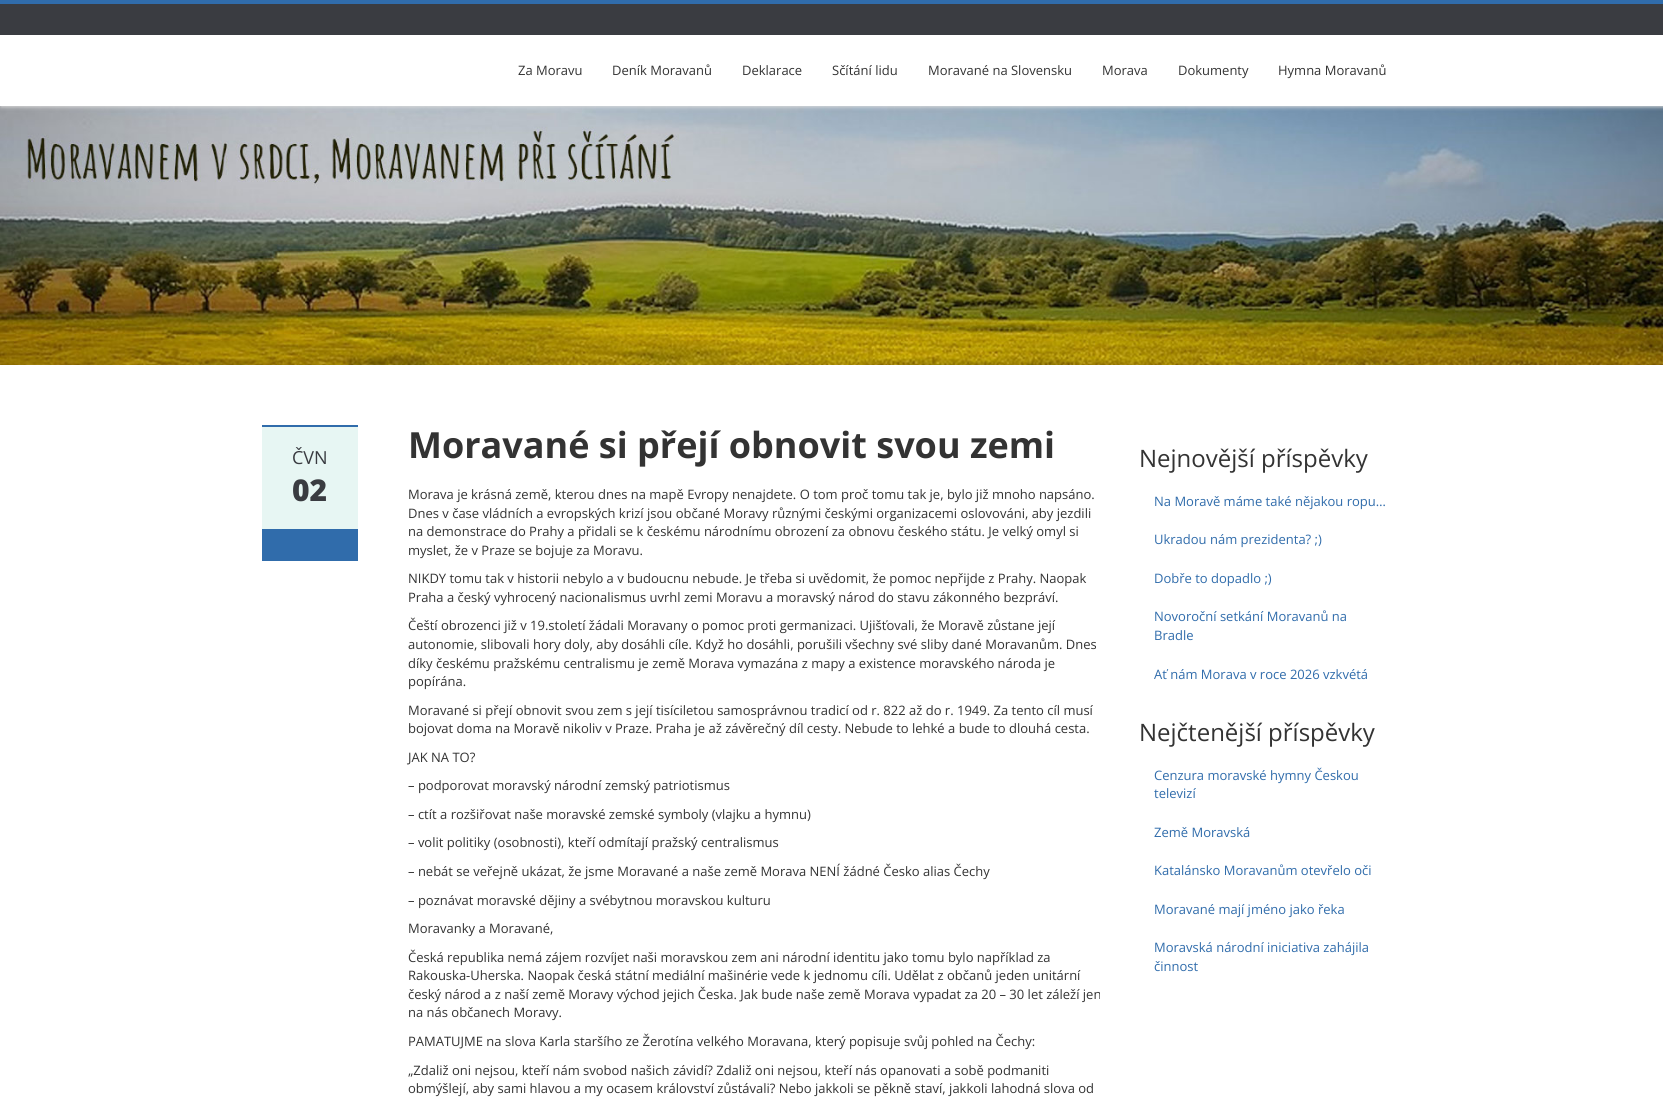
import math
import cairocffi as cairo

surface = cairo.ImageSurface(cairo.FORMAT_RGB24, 1663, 1104)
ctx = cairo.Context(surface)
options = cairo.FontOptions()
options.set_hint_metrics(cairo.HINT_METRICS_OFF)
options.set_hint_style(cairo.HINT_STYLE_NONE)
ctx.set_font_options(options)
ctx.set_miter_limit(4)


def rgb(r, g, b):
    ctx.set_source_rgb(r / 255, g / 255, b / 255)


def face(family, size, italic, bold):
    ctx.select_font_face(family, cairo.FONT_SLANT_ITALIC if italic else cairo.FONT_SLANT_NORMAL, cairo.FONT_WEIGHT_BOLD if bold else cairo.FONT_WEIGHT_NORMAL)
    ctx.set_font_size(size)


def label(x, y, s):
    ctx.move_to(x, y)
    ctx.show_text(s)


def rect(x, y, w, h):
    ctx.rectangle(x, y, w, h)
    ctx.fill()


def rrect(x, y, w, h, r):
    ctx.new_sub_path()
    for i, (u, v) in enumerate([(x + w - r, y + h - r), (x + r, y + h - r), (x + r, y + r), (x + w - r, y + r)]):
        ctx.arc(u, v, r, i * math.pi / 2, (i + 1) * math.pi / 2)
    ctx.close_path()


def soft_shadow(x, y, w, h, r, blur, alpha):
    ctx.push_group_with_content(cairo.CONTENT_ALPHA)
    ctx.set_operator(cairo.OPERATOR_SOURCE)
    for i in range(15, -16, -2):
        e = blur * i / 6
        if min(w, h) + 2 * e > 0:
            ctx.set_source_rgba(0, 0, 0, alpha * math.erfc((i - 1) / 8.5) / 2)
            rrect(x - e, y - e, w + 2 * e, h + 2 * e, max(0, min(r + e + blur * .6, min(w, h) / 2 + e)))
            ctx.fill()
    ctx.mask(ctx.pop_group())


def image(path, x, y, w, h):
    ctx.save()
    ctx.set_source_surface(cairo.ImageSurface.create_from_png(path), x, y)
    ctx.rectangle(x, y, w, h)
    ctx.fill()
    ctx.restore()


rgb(255, 255, 255)
ctx.paint()
image('image0.png', 0, 106, 1663, 259)
ctx.save()
ctx.rectangle(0, 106, 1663, 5)
ctx.clip()
rgb(221, 221, 221)
soft_shadow(1, 1, 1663, 106, 0, 2, 1)
ctx.restore()
rgb(58, 60, 65)
rect(0, 4, 1663, 31)
rgb(48, 108, 171)
rect(0, 0, 1663, 4)
face('Open Sans', 13, 0, 0)
rgb(51, 51, 51)
label(518, 75, 'Za Moravu')
label(612, 75, 'Deník Moravanů')
label(742, 75, 'Deklarace')
label(832, 75, 'Sčítání lidu')
label(928, 75, 'Moravané na Slovensku')
label(1102, 75, 'Morava')
label(1178, 75, 'Dokumenty')
label(1278, 75, 'Hymna Moravanů')
rgb(231, 246, 243)
rect(262, 427, 96, 102)
rgb(48, 108, 171)
rect(262, 425, 96, 2)
face('Open Sans', 18, 0, 0)
rgb(58, 60, 65)
label(292, 464, 'ČVN')
face('Open Sans ExtraBold', 30, 0, 0)
label(292, 501, '02')
rgb(48, 108, 171)
rect(262, 529, 96, 32)
face('Open Sans', 36, 0, 1)
rgb(51, 51, 51)
label(408, 458, 'Moravané si přejí obnovit svou zemi')
face('Open Sans', 13, 0, 0)
label(408, 499, 'Morava je krásná země, kterou dnes na mapě Evropy nenajdete. O tom proč tomu tak je, bylo již mnoho napsáno.')
label(408, 518, 'Dnes v čase vládních a evropských krizí jsou občané Moravy různými českými organizacemi oslovováni, aby jezdili')
label(408, 536, 'na demonstrace do Prahy a přidali se k českému národnímu obrození za obnovu českého státu. Je velký omyl si')
label(408, 555, 'myslet, že v Praze se bojuje za Moravu.')
label(408, 583, 'NIKDY tomu tak v historii nebylo a v budoucnu nebude. Je třeba si uvědomit, že pomoc nepřijde z Prahy. Naopak')
label(408, 602, 'Praha a český vyhrocený nacionalismus uvrhl zemi Moravu a moravský národ do stavu zákonného bezpráví.')
label(408, 630, 'Čeští obrozenci již v 19.století žádali Moravany o pomoc proti germanizaci. Ujišťovali, že Moravě zůstane její')
label(408, 649, 'autonomie, slibovali hory doly, aby dosáhli cíle. Když ho dosáhli, porušili všechny své sliby dané Moravanům. Dnes')
label(408, 668, 'díky českému pražskému centralismu je země Morava vymazána z mapy a existence moravského národa je')
label(408, 686, 'popírána.')
label(408, 715, 'Moravané si přejí obnovit svou zem s její tisíciletou samosprávnou tradicí od r. 822 až do r. 1949. Za tento cíl musí')
label(408, 733, 'bojovat doma na Moravě nikoliv v Praze. Praha je až závěrečný díl cesty. Nebude to lehké a bude to dlouhá cesta.')
label(408, 762, 'JAK NA TO?')
label(408, 790, '– podporovat moravský národní zemský patriotismus')
label(408, 819, '– ctít a rozšiřovat naše moravské zemské symboly (vlajku a hymnu)')
label(408, 847, '– volit politiky (osobnosti), kteří odmítají pražský centralismus')
label(408, 876, '– nebát se veřejně ukázat, že jsme Moravané a naše země Morava NENÍ žádné Česko alias Čechy')
label(408, 905, '– poznávat moravské dějiny a svébytnou moravskou kulturu')
label(408, 933, 'Moravanky a Moravané,')
label(408, 962, 'Česká republika nemá zájem rozvíjet naši moravskou zem ani národní identitu jako tomu bylo například za')
label(408, 980, 'Rakouska-Uherska. Naopak česká státní mediální mašinérie vede k jednomu cíli. Udělat z občanů jeden unitární')
label(408, 999, 'český národ a z naší země Moravy východ jejich Česka. Jak bude naše země Morava vypadat za 20 – 30 let záleží jen')
label(408, 1017, 'na nás občanech Moravy.')
label(408, 1046, 'PAMATUJME na slova Karla staršího ze Žerotína velkého Moravana, který popisuje svůj pohled na Čechy:')
label(408, 1075, '„Zdaliž oni nejsou, kteří nám svobod našich závidí? Zdaliž oni nejsou, kteří nás opanovati a sobě podmaniti')
label(408, 1093, 'obmýšlejí, aby sami hlavou a my ocasem království zůstávali? Nebo jakkoli se pěkně staví, jakkoli lahodná slova od')
face('Open Sans', 24, 0, 0)
label(1139, 467, 'Nejnovější příspěvky')
face('Open Sans', 13, 0, 0)
rgb(48, 108, 171)
label(1154, 506, 'Na Moravě máme také nějakou ropu…')
label(1154, 544, 'Ukradou nám prezidenta? ;)')
label(1154, 583, 'Dobře to dopadlo ;)')
label(1154, 621, 'Novoroční setkání Moravanů na')
label(1154, 640, 'Bradle')
label(1154, 679, 'Ať nám Morava v roce 2026 vzkvétá')
face('Open Sans', 24, 0, 0)
rgb(51, 51, 51)
label(1139, 741, 'Nejčtenější příspěvky')
face('Open Sans', 13, 0, 0)
rgb(48, 108, 171)
label(1154, 780, 'Cenzura moravské hymny Českou')
label(1154, 798, 'televizí')
label(1154, 837, 'Země Moravská')
label(1154, 875, 'Katalánsko Moravanům otevřelo oči')
label(1154, 914, 'Moravané mají jméno jako řeka')
label(1154, 952, 'Moravská národní iniciativa zahájila')
label(1154, 971, 'činnost')
surface.write_to_png('render.png')
